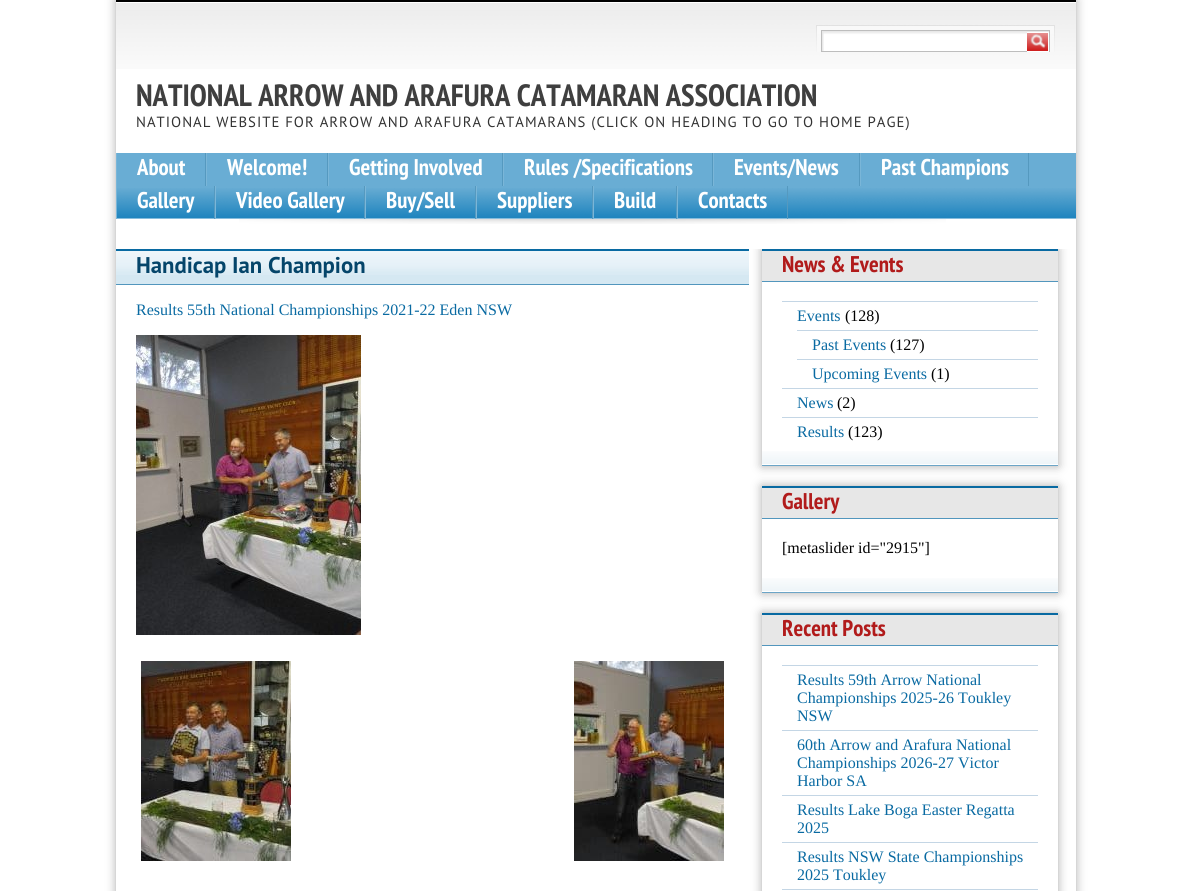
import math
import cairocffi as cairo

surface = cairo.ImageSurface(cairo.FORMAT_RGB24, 1192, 891)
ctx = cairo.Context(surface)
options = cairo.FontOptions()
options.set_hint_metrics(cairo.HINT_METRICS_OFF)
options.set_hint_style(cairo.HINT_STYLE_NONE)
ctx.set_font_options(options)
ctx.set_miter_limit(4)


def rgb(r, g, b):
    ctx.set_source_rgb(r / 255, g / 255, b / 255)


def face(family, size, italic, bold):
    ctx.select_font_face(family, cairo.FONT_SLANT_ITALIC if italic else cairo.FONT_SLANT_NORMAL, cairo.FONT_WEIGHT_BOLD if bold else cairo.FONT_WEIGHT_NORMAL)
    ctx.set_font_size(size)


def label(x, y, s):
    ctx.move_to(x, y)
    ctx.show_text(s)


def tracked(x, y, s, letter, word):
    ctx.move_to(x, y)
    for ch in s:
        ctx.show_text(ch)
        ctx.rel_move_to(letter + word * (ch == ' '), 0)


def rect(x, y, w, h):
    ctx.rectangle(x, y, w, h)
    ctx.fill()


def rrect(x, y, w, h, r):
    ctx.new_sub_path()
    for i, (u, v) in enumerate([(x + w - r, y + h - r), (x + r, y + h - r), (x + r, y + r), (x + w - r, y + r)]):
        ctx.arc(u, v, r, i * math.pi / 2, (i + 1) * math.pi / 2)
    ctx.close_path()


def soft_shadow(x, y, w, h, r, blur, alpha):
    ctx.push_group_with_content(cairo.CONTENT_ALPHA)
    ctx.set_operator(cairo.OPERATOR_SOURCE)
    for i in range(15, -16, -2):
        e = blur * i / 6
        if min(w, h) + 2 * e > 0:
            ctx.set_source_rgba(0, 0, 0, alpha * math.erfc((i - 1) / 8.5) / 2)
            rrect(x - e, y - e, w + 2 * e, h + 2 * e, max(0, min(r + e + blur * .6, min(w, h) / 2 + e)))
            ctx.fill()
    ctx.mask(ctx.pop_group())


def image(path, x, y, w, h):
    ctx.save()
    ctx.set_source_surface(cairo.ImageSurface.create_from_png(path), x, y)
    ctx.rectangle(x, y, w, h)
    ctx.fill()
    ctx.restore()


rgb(255, 255, 255)
ctx.paint()
ctx.save()
ctx.set_fill_rule(cairo.FILL_RULE_EVEN_ODD)
ctx.new_path()
ctx.move_to(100, 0)
ctx.line_to(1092, 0)
ctx.line_to(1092, 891)
ctx.line_to(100, 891)
ctx.close_path()
ctx.move_to(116, 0)
ctx.line_to(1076, 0)
ctx.line_to(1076, 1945)
ctx.line_to(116, 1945)
ctx.close_path()
ctx.clip()
rgb(170, 170, 170)
soft_shadow(116, 0, 960, 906, 0, 5, 1)
ctx.restore()
image('image0.png', 116, 0, 960, 69)
image('image1.png', 816, 25, 239, 27)
image('image2.png', 1027, 33, 21, 18)
rgb(255, 255, 255)
rect(1027, 32, 22, 1)
rect(1048, 32, 1, 20)
rect(1027, 51, 22, 1)
face('PT Sans Narrow', 30.75, 0, 1)
rgb(63, 63, 63)
label(136, 106, 'NATIONAL ARROW AND ARAFURA CATAMARAN ASSOCIATION')
face('PT Sans', 14.77, 0, 0)
rgb(51, 51, 51)
tracked(136, 127, 'NATIONAL WEBSITE FOR ARROW AND ARAFURA CATAMARANS (CLICK ON HEADING TO GO TO HOME PAGE)', 1, 0)
image('image3.png', 239, 219, 707, 5)
rgb(105, 173, 212)
rect(117, 153, 959, 35)
image('image4.png', 117, 188, 959, 31)
rgb(85, 153, 191)
rect(205, 153, 1, 33)
rgb(122, 182, 216)
rect(116, 153, 1, 66)
face('PT Sans Narrow', 22.75, 0, 1)
rgb(255, 255, 255)
label(137, 175, 'About')
rgb(85, 153, 191)
rect(327, 153, 1, 33)
rgb(122, 182, 216)
rect(206, 153, 1, 33)
rgb(255, 255, 255)
label(227, 175, 'Welcome!')
rgb(85, 153, 191)
rect(502, 153, 1, 33)
rgb(122, 182, 216)
rect(328, 153, 1, 33)
rgb(255, 255, 255)
label(349, 175, 'Getting Involved')
rgb(85, 153, 191)
rect(712, 153, 1, 33)
rgb(122, 182, 216)
rect(503, 153, 1, 33)
rgb(255, 255, 255)
label(524, 175, 'Rules /Specifications')
rgb(85, 153, 191)
rect(859, 153, 1, 33)
rgb(122, 182, 216)
rect(713, 153, 1, 33)
rgb(255, 255, 255)
label(734, 175, 'Events/News')
rgb(85, 153, 191)
rect(1028, 153, 1, 33)
rgb(122, 182, 216)
rect(860, 153, 1, 33)
rgb(255, 255, 255)
label(881, 175, 'Past Champions')
rgb(85, 153, 191)
rect(214, 186, 1, 33)
rgb(255, 255, 255)
label(137, 208, 'Gallery')
rgb(85, 153, 191)
rect(364, 186, 1, 33)
rgb(122, 182, 216)
rect(215, 186, 1, 33)
rgb(255, 255, 255)
label(236, 208, 'Video Gallery')
rgb(85, 153, 191)
rect(475, 186, 1, 33)
rgb(122, 182, 216)
rect(365, 186, 1, 33)
rgb(255, 255, 255)
label(386, 208, 'Buy/Sell')
rgb(85, 153, 191)
rect(592, 186, 1, 33)
rgb(122, 182, 216)
rect(476, 186, 1, 33)
rgb(255, 255, 255)
label(497, 208, 'Suppliers')
rgb(85, 153, 191)
rect(676, 186, 1, 33)
rgb(122, 182, 216)
rect(593, 186, 1, 33)
rgb(255, 255, 255)
label(614, 208, 'Build')
rgb(85, 153, 191)
rect(787, 186, 1, 33)
rgb(122, 182, 216)
rect(677, 186, 1, 33)
rgb(255, 255, 255)
label(698, 208, 'Contacts')
rgb(213, 232, 242)
rect(116, 275, 633, 9)
image('image5.png', 116, 251, 633, 24)
rgb(9, 106, 162)
rect(116, 249, 633, 2)
rgb(82, 150, 189)
rect(116, 284, 633, 1)
face('PT Sans', 22.75, 0, 1)
rgb(5, 69, 106)
label(136, 273, 'Handicap Ian Champion')
face('Liberation Serif', 16, 0, 0)
rgb(9, 106, 162)
label(136, 315, 'Results 55th National Championships 2021-22 Eden NSW')
image('image6.png', 136, 335, 225, 300)
image('image7.png', 141, 661, 150, 200)
image('image8.png', 574, 661, 150, 200)
ctx.save()
ctx.rectangle(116, 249, 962, 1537)
ctx.clip()
ctx.set_fill_rule(cairo.FILL_RULE_EVEN_ODD)
ctx.new_path()
ctx.move_to(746, 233)
ctx.line_to(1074, 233)
ctx.line_to(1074, 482)
ctx.line_to(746, 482)
ctx.close_path()
ctx.move_to(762, 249)
ctx.line_to(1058, 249)
ctx.line_to(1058, 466)
ctx.line_to(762, 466)
ctx.close_path()
ctx.clip()
rgb(170, 170, 170)
soft_shadow(762, 249, 296, 217, 0, 5, 1)
ctx.restore()
image('image9.png', 762, 451, 296, 15)
rgb(231, 231, 231)
rect(762, 251, 296, 30)
rgb(9, 106, 162)
rect(762, 249, 296, 2)
rgb(82, 150, 189)
rect(762, 281, 296, 1)
face('PT Sans Narrow', 22.75, 0, 1)
rgb(177, 27, 27)
label(782, 272, 'News & Events')
rgb(196, 214, 229)
rect(782, 301, 256, 1)
face('Liberation Serif', 16, 0, 0)
rgb(9, 106, 162)
label(797, 321, 'Events')
rgb(0, 0, 0)
label(845, 321, '(128)')
rgb(196, 214, 229)
rect(797, 330, 241, 1)
rgb(9, 106, 162)
label(812, 350, 'Past Events')
rgb(0, 0, 0)
label(890, 350, '(127)')
rgb(196, 214, 229)
rect(797, 359, 241, 1)
rgb(9, 106, 162)
label(812, 379, 'Upcoming Events')
rgb(0, 0, 0)
label(931, 379, '(1)')
rgb(196, 214, 229)
rect(782, 388, 256, 1)
rgb(9, 106, 162)
label(797, 408, 'News')
rgb(0, 0, 0)
label(837, 408, '(2)')
rgb(196, 214, 229)
rect(782, 417, 256, 1)
rgb(9, 106, 162)
label(797, 437, 'Results')
rgb(0, 0, 0)
label(848, 437, '(123)')
ctx.save()
ctx.set_fill_rule(cairo.FILL_RULE_EVEN_ODD)
ctx.new_path()
ctx.move_to(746, 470)
ctx.line_to(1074, 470)
ctx.line_to(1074, 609)
ctx.line_to(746, 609)
ctx.close_path()
ctx.move_to(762, 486)
ctx.line_to(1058, 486)
ctx.line_to(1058, 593)
ctx.line_to(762, 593)
ctx.close_path()
ctx.clip()
rgb(170, 170, 170)
soft_shadow(762, 486, 296, 107, 0, 5, 1)
ctx.restore()
image('image9.png', 762, 578, 296, 15)
rgb(231, 231, 231)
rect(762, 488, 296, 30)
rgb(9, 106, 162)
rect(762, 486, 296, 2)
rgb(82, 150, 189)
rect(762, 518, 296, 1)
face('PT Sans Narrow', 22.75, 0, 1)
rgb(177, 27, 27)
label(782, 509, 'Gallery')
face('Liberation Serif', 16, 0, 0)
rgb(0, 0, 0)
label(782, 553, '[metaslider id="2915"]')
ctx.save()
ctx.set_fill_rule(cairo.FILL_RULE_EVEN_ODD)
ctx.new_path()
ctx.move_to(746, 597)
ctx.line_to(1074, 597)
ctx.line_to(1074, 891)
ctx.line_to(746, 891)
ctx.close_path()
ctx.move_to(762, 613)
ctx.line_to(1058, 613)
ctx.line_to(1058, 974)
ctx.line_to(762, 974)
ctx.close_path()
ctx.clip()
rgb(170, 170, 170)
soft_shadow(762, 613, 296, 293, 0, 5, 1)
ctx.restore()
rgb(231, 231, 231)
rect(762, 615, 296, 30)
rgb(9, 106, 162)
rect(762, 613, 296, 2)
rgb(82, 150, 189)
rect(762, 645, 296, 1)
face('PT Sans Narrow', 22.75, 0, 1)
rgb(177, 27, 27)
label(782, 636, 'Recent Posts')
rgb(196, 214, 229)
rect(782, 665, 256, 1)
face('Liberation Serif', 16, 0, 0)
rgb(9, 106, 162)
label(797, 685, 'Results 59th Arrow National')
label(797, 703, 'Championships 2025-26 Toukley')
label(797, 721, 'NSW')
rgb(196, 214, 229)
rect(782, 730, 256, 1)
rgb(9, 106, 162)
label(797, 750, '60th Arrow and Arafura National')
label(797, 768, 'Championships 2026-27 Victor')
label(797, 786, 'Harbor SA')
rgb(196, 214, 229)
rect(782, 795, 256, 1)
rgb(9, 106, 162)
label(797, 815, 'Results Lake Boga Easter Regatta')
label(797, 833, '2025')
rgb(196, 214, 229)
rect(782, 842, 256, 1)
rgb(9, 106, 162)
label(797, 862, 'Results NSW State Championships')
label(797, 880, '2025 Toukley')
rgb(196, 214, 229)
rect(782, 889, 256, 1)
surface.write_to_png('render.png')
